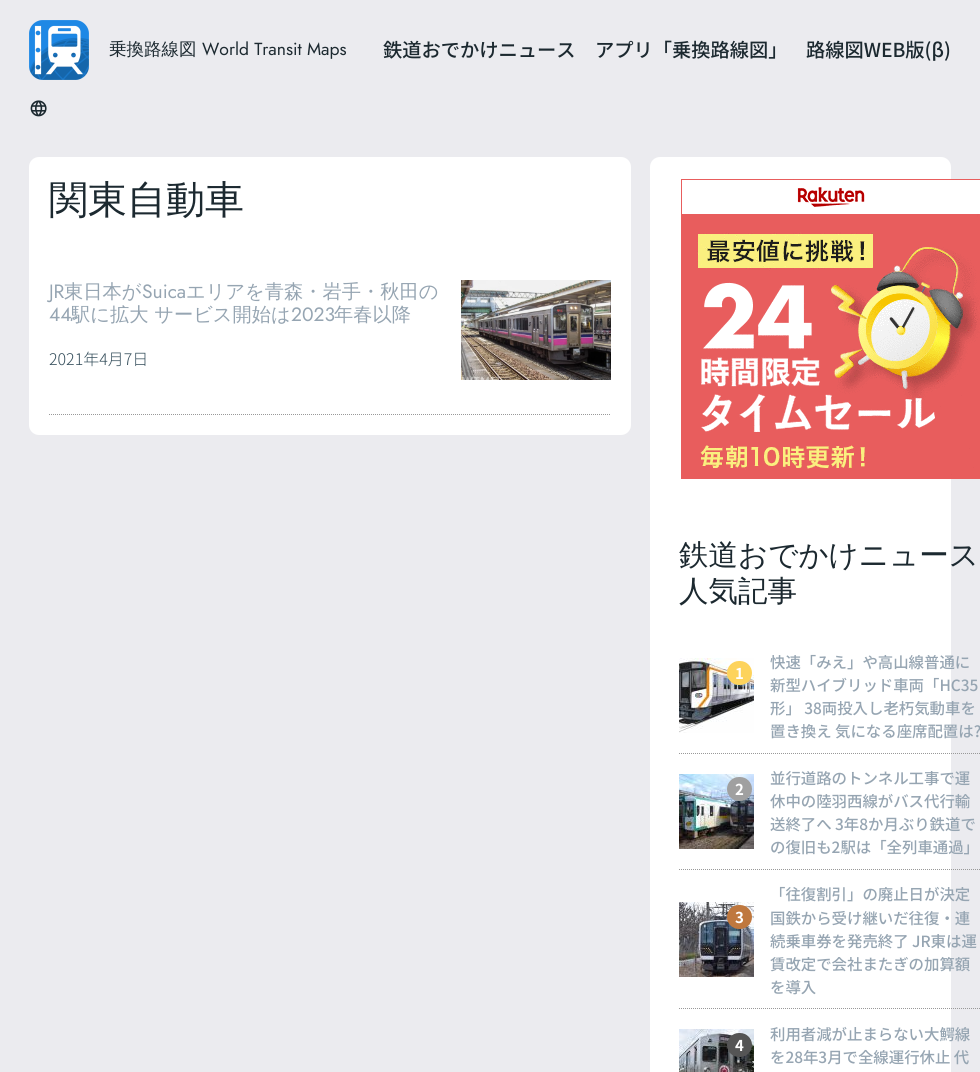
import math
import cairocffi as cairo

surface = cairo.ImageSurface(cairo.FORMAT_RGB24, 980, 1072)
ctx = cairo.Context(surface)
options = cairo.FontOptions()
options.set_hint_metrics(cairo.HINT_METRICS_OFF)
options.set_hint_style(cairo.HINT_STYLE_NONE)
ctx.set_font_options(options)
ctx.set_miter_limit(4)


def rgb(r, g, b):
    ctx.set_source_rgb(r / 255, g / 255, b / 255)


def face(family, size, italic, bold):
    ctx.select_font_face(family, cairo.FONT_SLANT_ITALIC if italic else cairo.FONT_SLANT_NORMAL, cairo.FONT_WEIGHT_BOLD if bold else cairo.FONT_WEIGHT_NORMAL)
    ctx.set_font_size(size)


def label(x, y, s):
    ctx.move_to(x, y)
    ctx.show_text(s)


def rrect(x, y, w, h, r):
    ctx.new_sub_path()
    for i, (u, v) in enumerate([(x + w - r, y + h - r), (x + r, y + h - r), (x + r, y + r), (x + w - r, y + r)]):
        ctx.arc(u, v, r, i * math.pi / 2, (i + 1) * math.pi / 2)
    ctx.close_path()


def image(path, x, y, w, h):
    ctx.save()
    ctx.set_source_surface(cairo.ImageSurface.create_from_png(path), x, y)
    ctx.rectangle(x, y, w, h)
    ctx.fill()
    ctx.restore()


rgb(235, 235, 239)
ctx.paint()
image('image0.png', 29, 20, 60, 60)
face('WenQuanYi Zen Hei Medium', 17.5, 0, 0)
rgb(28, 41, 48)
label(109, 55, '乗換路線図')
face('Jost', 17.5, 0, 0)
label(202, 55, 'World Transit Maps')
face('Noto Sans JP Medium', 19.25, 0, 0)
label(383, 57, '鉄道おでかけニュース')
label(595, 57, 'アプリ「乗換路線図」')
label(806, 57, '路線図WEB版(β)')
image('image1.png', 30, 100, 17, 17)
rgb(255, 255, 255)
rrect(29, 157, 602, 278, 10)
ctx.fill()
face('WenQuanYi Zen Hei Medium', 39, 0, 0)
rgb(28, 41, 48)
label(49, 213, '関東自動車')
ctx.new_path()
ctx.move_to(49, 414.5)
ctx.line_to(611, 414.5)
rgb(153, 153, 153)
ctx.set_line_width(1)
ctx.set_dash([1, 1])
ctx.stroke()
face('Jost', 19.25, 0, 0)
rgb(150, 165, 178)
label(49, 298, 'JR')
face('WenQuanYi Zen Hei Medium', 19.25, 0, 0)
label(64, 298, '東日本が')
face('Jost', 19.25, 0, 0)
label(142, 298, 'Suica')
face('WenQuanYi Zen Hei Medium', 19.25, 0, 0)
label(186, 298, 'エリアを青森・岩手・秋田の')
face('Jost', 19.25, 0, 0)
label(49, 321, '44')
face('WenQuanYi Zen Hei Medium', 19.25, 0, 0)
label(71, 321, '駅に拡大 サービス開始は')
face('Jost', 19.25, 0, 0)
label(291, 321, '2023')
face('WenQuanYi Zen Hei Medium', 19.25, 0, 0)
label(334, 321, '年春以降')
face('Noto Sans JP Light', 16, 0, 0)
rgb(55, 80, 93)
label(49, 365, '2021年4月7日')
image('image2.png', 461, 280, 150, 100)
rgb(255, 255, 255)
rrect(650, 157, 301, 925, 10)
ctx.fill()
image('image3.png', 681, 179, 299, 300)
face('WenQuanYi Zen Hei Medium', 29.5, 0, 0)
rgb(28, 41, 48)
label(679, 565, '鉄道おでかけニュース')
label(679, 601, '人気記事')
ctx.new_path()
ctx.move_to(679, 753.5)
ctx.line_to(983, 753.5)
rgb(153, 153, 153)
ctx.stroke()
image('image4.png', 679, 658, 75, 75)
face('Noto Sans JP Medium', 15.4, 0, 0)
rgb(150, 165, 178)
label(770, 668, '快速「みえ」や高山線普通に')
label(770, 691, '新型ハイブリッド車両「HC35')
label(770, 714, '形」 38両投入し老朽気動車を')
label(770, 737, '置き換え 気になる座席配置は?')
rgb(253, 211, 92)
rrect(727, 661, 25, 24, 12)
ctx.fill()
face('Noto Sans JP', 15, 0, 1)
rgb(255, 255, 255)
label(735, 679, '1')
ctx.new_path()
ctx.move_to(679, 869.5)
ctx.line_to(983, 869.5)
rgb(153, 153, 153)
ctx.stroke()
image('image5.png', 679, 774, 75, 75)
face('Noto Sans JP Medium', 15.4, 0, 0)
rgb(150, 165, 178)
label(770, 784, '並行道路のトンネル工事で運')
label(770, 807, '休中の陸羽西線がバス代行輸')
label(770, 830, '送終了へ 3年8か月ぶり鉄道で')
label(770, 853, 'の復旧も2駅は「全列車通過」')
rgb(160, 160, 160)
rrect(727, 777, 25, 24, 12)
ctx.fill()
face('Noto Sans JP', 15, 0, 1)
rgb(255, 255, 255)
label(735, 795, '2')
ctx.new_path()
ctx.move_to(679, 1008.5)
ctx.line_to(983, 1008.5)
rgb(153, 153, 153)
ctx.stroke()
image('image6.png', 679, 902, 75, 75)
face('Noto Sans JP Medium', 15.4, 0, 0)
rgb(150, 165, 178)
label(770, 900, '「往復割引」の廃止日が決定')
label(770, 924, '国鉄から受け継いだ往復・連')
label(770, 947, '続乗車券を発売終了 JR東は運')
label(770, 970, '賃改定で会社またぎの加算額')
label(770, 993, 'を導入')
rgb(191, 120, 62)
rrect(727, 905, 25, 24, 12)
ctx.fill()
face('Noto Sans JP', 15, 0, 1)
rgb(255, 255, 255)
label(735, 923, '3')
image('image7.png', 679, 1029, 75, 43)
face('Noto Sans JP Medium', 15.4, 0, 0)
rgb(150, 165, 178)
label(770, 1040, '利用者減が止まらない大鰐線')
label(770, 1063, 'を28年3月で全線運行休止 代')
rgb(85, 85, 85)
rrect(727, 1033, 25, 24, 12)
ctx.fill()
face('Noto Sans JP', 15, 0, 1)
rgb(255, 255, 255)
label(735, 1051, '4')
surface.write_to_png('render.png')
